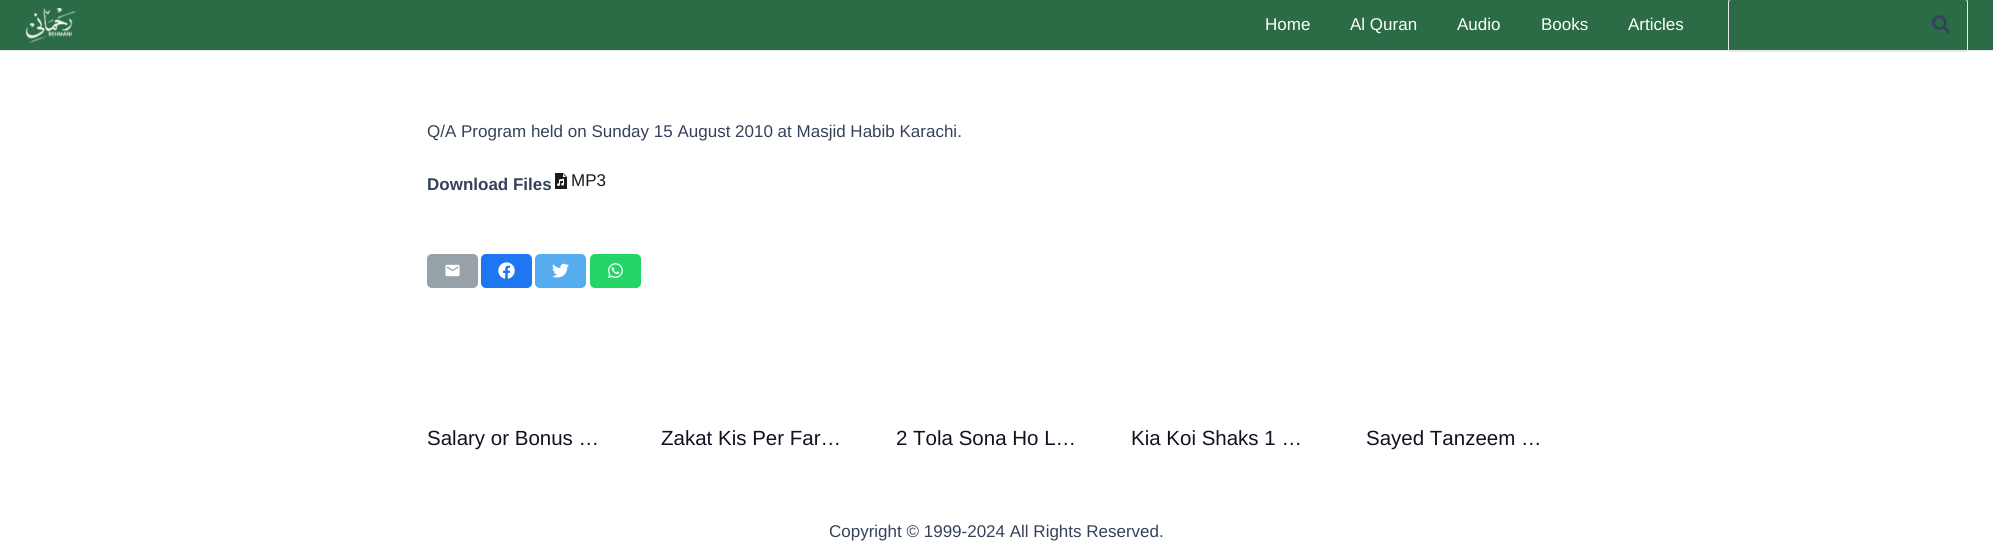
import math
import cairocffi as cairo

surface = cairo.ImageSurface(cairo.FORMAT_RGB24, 1993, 546)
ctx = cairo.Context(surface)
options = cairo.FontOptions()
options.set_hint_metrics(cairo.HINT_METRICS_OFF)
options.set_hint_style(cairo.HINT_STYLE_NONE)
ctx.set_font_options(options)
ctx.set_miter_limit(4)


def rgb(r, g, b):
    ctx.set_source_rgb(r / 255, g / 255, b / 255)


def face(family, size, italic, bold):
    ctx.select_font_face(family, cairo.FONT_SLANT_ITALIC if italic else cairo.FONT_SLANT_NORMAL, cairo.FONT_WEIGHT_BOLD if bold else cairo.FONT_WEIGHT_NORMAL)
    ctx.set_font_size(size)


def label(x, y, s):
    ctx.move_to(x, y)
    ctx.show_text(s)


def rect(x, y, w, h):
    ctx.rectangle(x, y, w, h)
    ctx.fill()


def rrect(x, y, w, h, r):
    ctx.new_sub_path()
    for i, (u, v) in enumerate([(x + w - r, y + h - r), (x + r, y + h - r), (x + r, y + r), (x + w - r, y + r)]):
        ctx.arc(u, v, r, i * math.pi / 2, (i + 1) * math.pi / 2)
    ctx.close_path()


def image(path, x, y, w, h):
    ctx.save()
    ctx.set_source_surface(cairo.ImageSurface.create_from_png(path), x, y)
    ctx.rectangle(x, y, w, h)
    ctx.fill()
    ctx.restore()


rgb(255, 255, 255)
ctx.paint()
rgb(235, 235, 235)
rect(0, 50, 1993, 1)
rgb(43, 107, 70)
rect(0, 0, 1993, 50)
image('image0.png', 25, 7, 51, 36)
face('Liberation Sans', 17, 0, 0)
rgb(255, 255, 255)
label(1265, 30, 'Home')
label(1350, 30, 'Al Quran')
label(1457, 30, 'Audio')
label(1541, 30, 'Books')
label(1628, 30, 'Articles')
rrect(1728.5, -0.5, 239, 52, 2.5)
rgb(232, 232, 232)
ctx.set_line_width(1)
ctx.stroke()
image('image1.png', 1932, 15, 18, 19)
rgb(53, 65, 91)
label(427, 137, 'Q/A Program held on Sunday 15 August 2010 at Masjid Habib Karachi.')
face('Liberation Sans', 17, 0, 1)
label(427, 190, 'Download Files')
image('image2.png', 555, 173, 12, 16)
face('Liberation Sans', 17, 0, 0)
rgb(26, 26, 26)
label(571, 186, 'MP3')
rgb(150, 162, 168)
rrect(427, 254, 51, 34, 5)
ctx.fill()
image('image3.png', 445, 264, 15, 13)
rgb(30, 119, 240)
rrect(481, 254, 51, 34, 5)
ctx.fill()
image('image4.png', 498, 262, 17, 17)
rgb(85, 172, 238)
rrect(535, 254, 51, 34, 5)
ctx.fill()
image('image5.png', 552, 263, 17, 15)
rgb(37, 211, 102)
rrect(590, 254, 51, 34, 5)
ctx.fill()
image('image6.png', 608, 263, 15, 15)
face('Liberation Sans', 20.5, 0, 0)
rgb(15, 19, 31)
label(427, 445, 'Salary or Bonus …')
label(661, 445, 'Zakat Kis Per Far…')
label(896, 445, '2 Tola Sona Ho L…')
label(1131, 445, 'Kia Koi Shaks 1 …')
label(1366, 445, 'Sayed Tanzeem …')
face('Liberation Sans', 17, 0, 0)
rgb(53, 65, 91)
label(829, 537, 'Copyright © 1999-2024 All Rights Reserved.')
surface.write_to_png('render.png')
